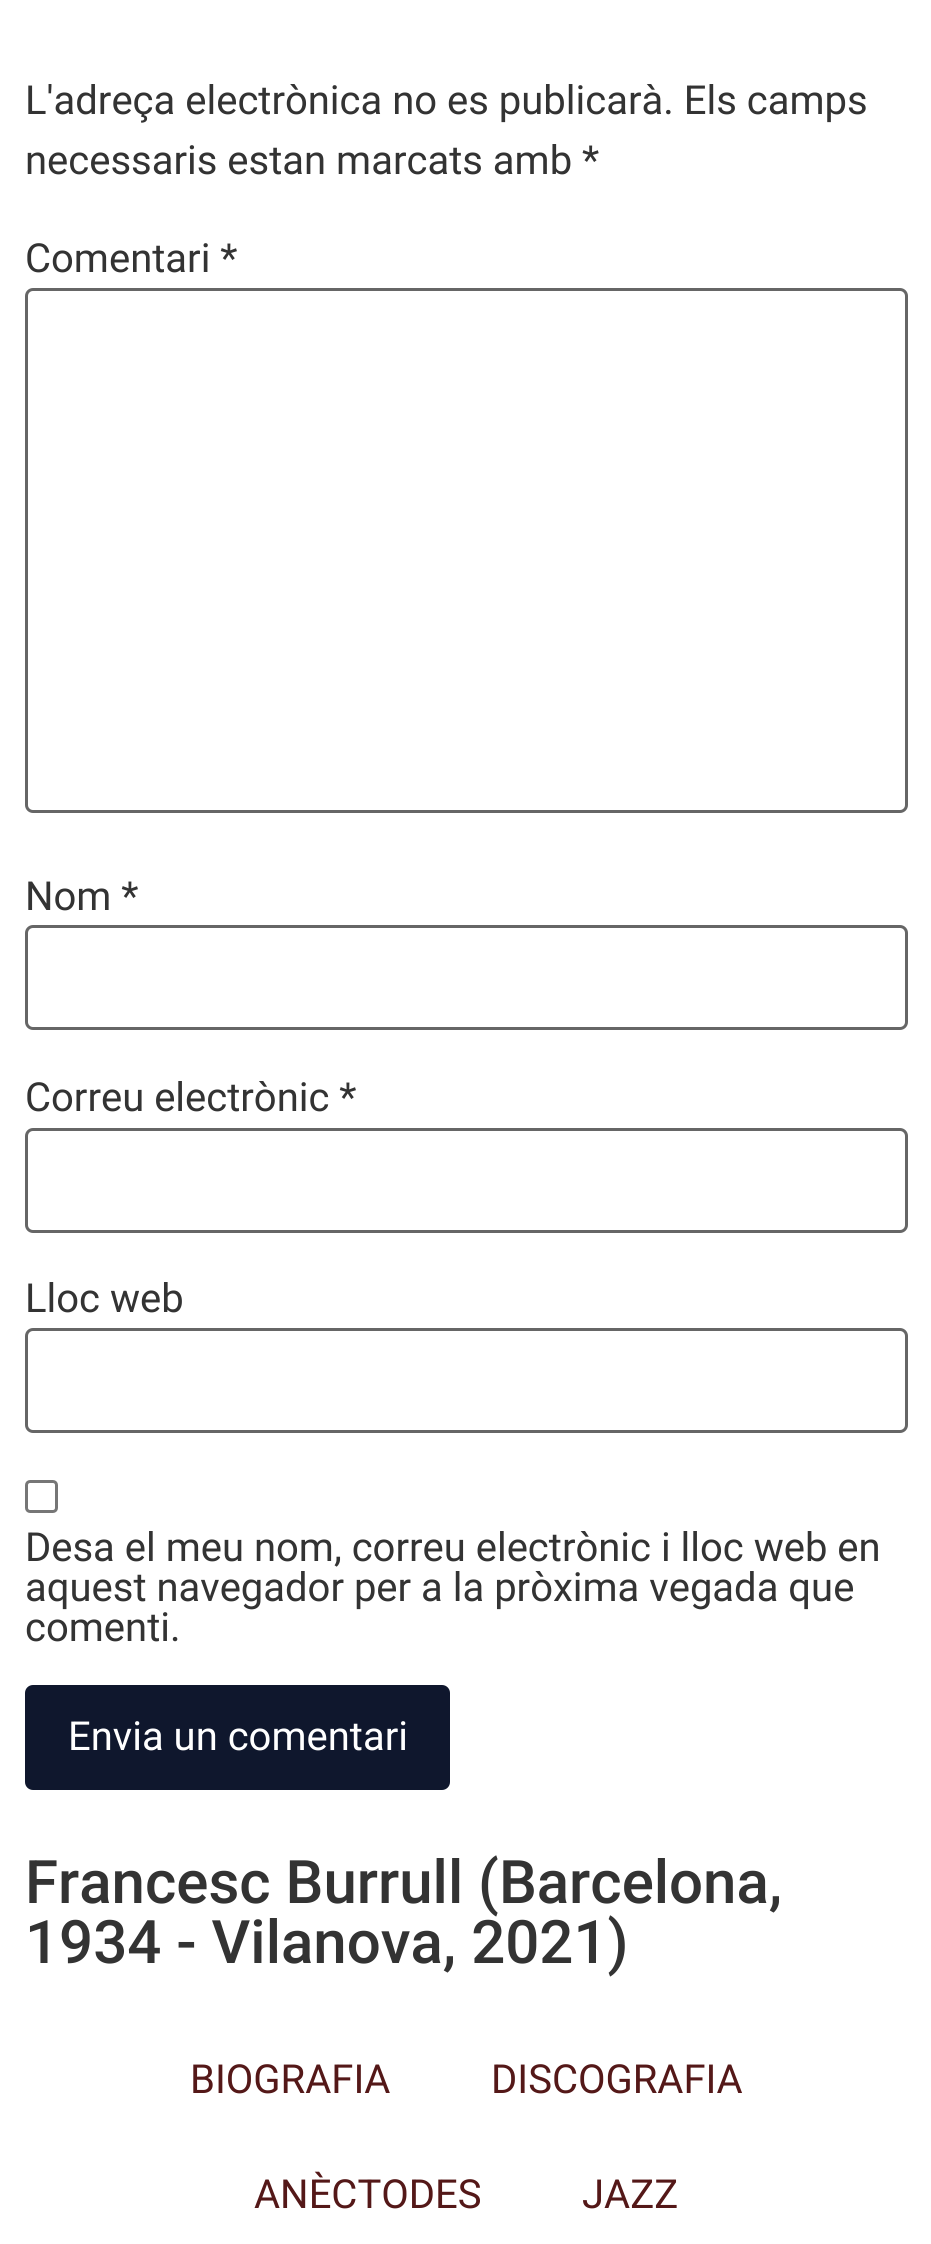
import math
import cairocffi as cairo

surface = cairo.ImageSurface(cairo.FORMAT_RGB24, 931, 2244)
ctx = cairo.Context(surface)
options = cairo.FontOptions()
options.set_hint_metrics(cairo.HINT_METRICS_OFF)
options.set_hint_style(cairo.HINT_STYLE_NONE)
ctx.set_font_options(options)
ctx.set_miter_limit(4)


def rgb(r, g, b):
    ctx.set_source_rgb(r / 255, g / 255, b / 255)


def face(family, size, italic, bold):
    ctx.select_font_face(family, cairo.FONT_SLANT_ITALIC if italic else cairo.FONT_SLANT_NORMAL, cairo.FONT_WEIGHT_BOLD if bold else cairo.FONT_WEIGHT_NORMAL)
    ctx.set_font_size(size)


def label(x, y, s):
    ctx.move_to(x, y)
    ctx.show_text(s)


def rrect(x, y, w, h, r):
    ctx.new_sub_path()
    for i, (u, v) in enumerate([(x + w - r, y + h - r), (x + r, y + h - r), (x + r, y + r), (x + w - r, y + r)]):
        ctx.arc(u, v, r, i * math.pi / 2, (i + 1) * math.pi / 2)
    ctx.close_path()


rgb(255, 255, 255)
ctx.paint()
face('Roboto', 40, 0, 0)
rgb(51, 51, 51)
label(25, 114, 'L\'adreça electrònica no es publicarà. Els camps')
label(25, 174, 'necessaris estan marcats amb *')
label(25, 272, 'Comentari *')
rrect(26.5, 289.5, 880, 522, 6.5)
rgb(102, 102, 102)
ctx.set_line_width(3)
ctx.stroke()
rgb(51, 51, 51)
label(25, 910, 'Nom *')
rrect(26.5, 926.5, 880, 102, 6.5)
rgb(102, 102, 102)
ctx.stroke()
rgb(51, 51, 51)
label(25, 1111, 'Correu electrònic *')
rrect(26.5, 1129.5, 880, 102, 6.5)
rgb(102, 102, 102)
ctx.stroke()
rgb(51, 51, 51)
label(25, 1312, 'Lloc web')
rrect(26.5, 1329.5, 880, 102, 6.5)
rgb(102, 102, 102)
ctx.stroke()
rrect(26.5, 1481.5, 30, 30, 3.5)
rgb(118, 118, 118)
ctx.stroke()
rgb(51, 51, 51)
label(25, 1561, 'Desa el meu nom, correu electrònic i lloc web en')
label(25, 1601, 'aquest navegador per a la pròxima vegada que')
label(25, 1641, 'comenti.')
rgb(15, 23, 45)
rrect(26.5, 1686.5, 422, 102, 6.5)
ctx.fill_preserve()
ctx.stroke()
rgb(255, 255, 255)
label(68, 1750, 'Envia un comentari')
face('Roboto Medium', 60, 0, 0)
rgb(51, 51, 51)
label(25, 1903, 'Francesc Burrull (Barcelona,')
label(25, 1963, '1934 - Vilanova, 2021)')
face('Roboto', 40, 0, 0)
rgb(84, 24, 24)
label(190, 2093, 'BIOGRAFIA')
label(491, 2093, 'DISCOGRAFIA')
label(254, 2208, 'ANÈCTODES')
label(582, 2208, 'JAZZ')
surface.write_to_png('render.png')
